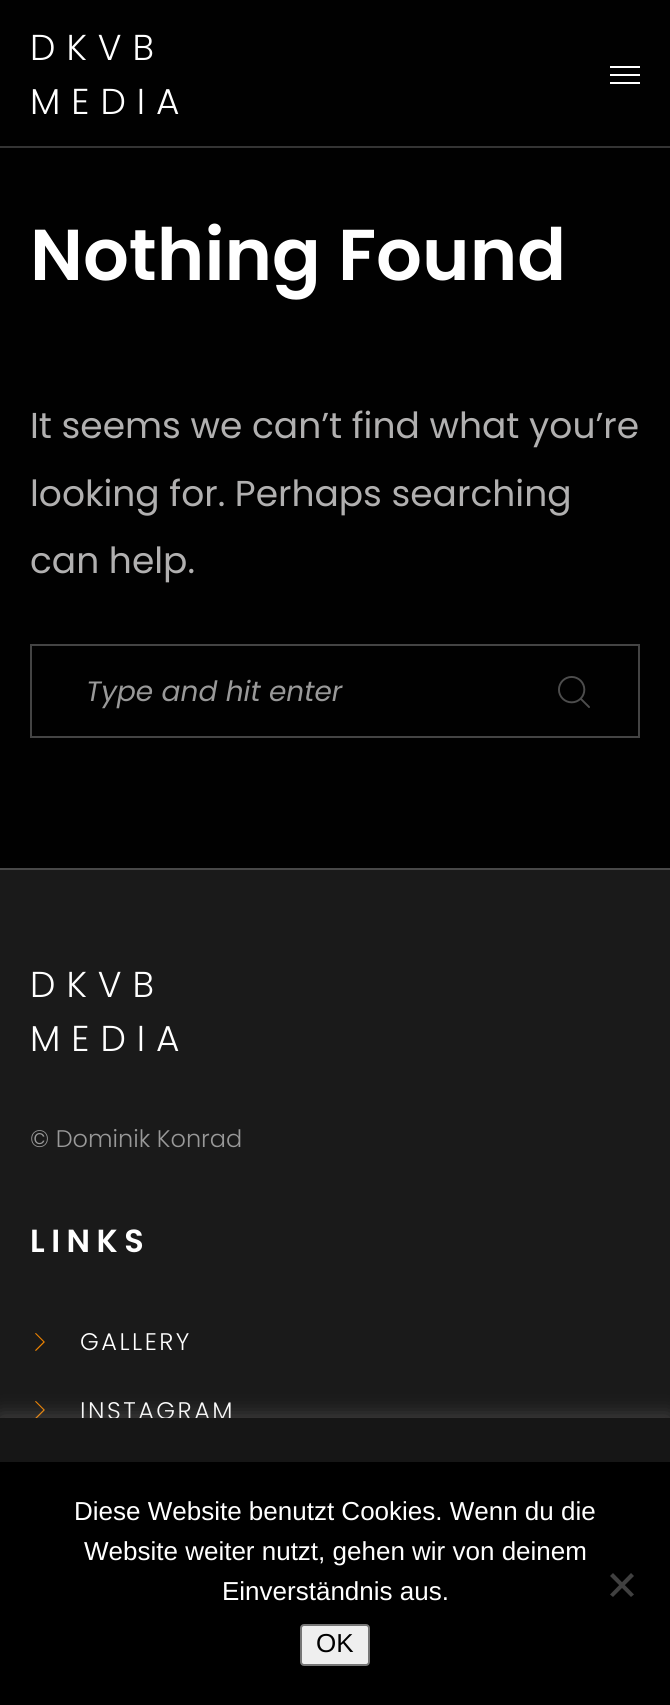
import math
import cairocffi as cairo

surface = cairo.ImageSurface(cairo.FORMAT_RGB24, 670, 1705)
ctx = cairo.Context(surface)
options = cairo.FontOptions()
options.set_hint_metrics(cairo.HINT_METRICS_OFF)
options.set_hint_style(cairo.HINT_STYLE_NONE)
ctx.set_font_options(options)
ctx.set_miter_limit(4)


def rgb(r, g, b):
    ctx.set_source_rgb(r / 255, g / 255, b / 255)


def face(family, size, italic, bold):
    ctx.select_font_face(family, cairo.FONT_SLANT_ITALIC if italic else cairo.FONT_SLANT_NORMAL, cairo.FONT_WEIGHT_BOLD if bold else cairo.FONT_WEIGHT_NORMAL)
    ctx.set_font_size(size)


def label(x, y, s):
    ctx.move_to(x, y)
    ctx.show_text(s)


def tracked(x, y, s, letter, word):
    ctx.move_to(x, y)
    for ch in s:
        ctx.show_text(ch)
        ctx.rel_move_to(letter + word * (ch == ' '), 0)


def rect(x, y, w, h):
    ctx.rectangle(x, y, w, h)
    ctx.fill()


def rrect(x, y, w, h, r):
    ctx.new_sub_path()
    for i, (u, v) in enumerate([(x + w - r, y + h - r), (x + r, y + h - r), (x + r, y + r), (x + w - r, y + r)]):
        ctx.arc(u, v, r, i * math.pi / 2, (i + 1) * math.pi / 2)
    ctx.close_path()


def soft_shadow(x, y, w, h, r, blur, alpha):
    ctx.push_group_with_content(cairo.CONTENT_ALPHA)
    ctx.set_operator(cairo.OPERATOR_SOURCE)
    for i in range(15, -16, -2):
        e = blur * i / 6
        if min(w, h) + 2 * e > 0:
            ctx.set_source_rgba(0, 0, 0, alpha * math.erfc((i - 1) / 8.5) / 2)
            rrect(x - e, y - e, w + 2 * e, h + 2 * e, max(0, min(r + e + blur * .6, min(w, h) / 2 + e)))
            ctx.fill()
    ctx.mask(ctx.pop_group())


def image(path, x, y, w, h):
    ctx.save()
    ctx.set_source_surface(cairo.ImageSurface.create_from_png(path), x, y)
    ctx.rectangle(x, y, w, h)
    ctx.fill()
    ctx.restore()


rgb(1, 1, 1)
ctx.paint()
face('Poppins Light', 36, 0, 0)
rgb(255, 255, 255)
tracked(30, 60, 'DKVB', 11, 0)
tracked(30, 114, 'MEDIA', 11, 0)
rect(610, 66, 30, 2)
rect(610, 74, 30, 2)
rect(610, 82, 30, 2)
rgb(52, 52, 52)
rect(0, 146, 670, 2)
face('Poppins SemiBold', 72, 0, 0)
rgb(255, 255, 255)
label(30, 280, 'Nothing Found')
face('Poppins', 36, 0, 0)
rgb(177, 176, 176)
label(30, 438, 'It seems we can’t find what you’re')
label(30, 506, 'looking for. Perhaps searching')
label(30, 573, 'can help.')
ctx.rectangle(31, 645, 608, 92)
rgb(68, 68, 68)
ctx.stroke()
face('Poppins', 28, 1, 0)
rgb(153, 153, 153)
label(86, 701, 'Type and hit enter')
image('image0.png', 558, 676, 32, 32)
rgb(26, 26, 26)
rect(0, 870, 670, 548)
rgb(72, 72, 72)
rect(0, 868, 670, 2)
face('Poppins Light', 36, 0, 0)
rgb(255, 255, 255)
tracked(30, 997, 'DKVB', 11, 0)
tracked(30, 1051, 'MEDIA', 11, 0)
face('Poppins Light', 24, 0, 0)
rgb(153, 153, 153)
label(30, 1147, '© Dominik Konrad')
face('Poppins SemiBold', 32, 0, 0)
rgb(255, 255, 255)
tracked(30, 1252, 'LINKS', 6.5, 0)
image('image1.png', 35, 1333, 10, 18)
face('Poppins Light', 24, 0, 0)
tracked(80, 1350, 'GALLERY', 2.5, 0)
image('image2.png', 35, 1401, 10, 17)
tracked(80, 1419, 'INSTAGRAM', 2.5, 0)
rgb(172, 171, 171)
soft_shadow(0, 1416, 670, 288, 0, 10, 0.3)
rgb(22, 22, 22)
rect(0, 1418, 670, 44)
rgb(0, 0, 0)
rect(0, 1462, 670, 243)
face('Liberation Sans', 26, 0, 0)
rgb(255, 255, 255)
label(74, 1520, 'Diese Website benutzt Cookies. Wenn du die')
label(84, 1560, 'Website weiter nutzt, gehen wir von deinem')
label(222, 1600, 'Einverständnis aus.')
rgb(64, 64, 64)
ctx.new_path()
ctx.move_to(631, 1573)
ctx.line_to(634, 1576)
ctx.line_to(613, 1597)
ctx.line_to(610, 1594.5)
ctx.close_path()
ctx.fill()
ctx.new_path()
ctx.move_to(610, 1576)
ctx.line_to(613, 1573)
ctx.line_to(634, 1594.5)
ctx.line_to(631, 1597)
ctx.close_path()
ctx.fill()
rgb(239, 239, 239)
rrect(301, 1625, 68, 40, 3)
ctx.fill_preserve()
rgb(118, 118, 118)
ctx.stroke()
rgb(0, 0, 0)
label(316, 1652, 'OK')
surface.write_to_png('render.png')
